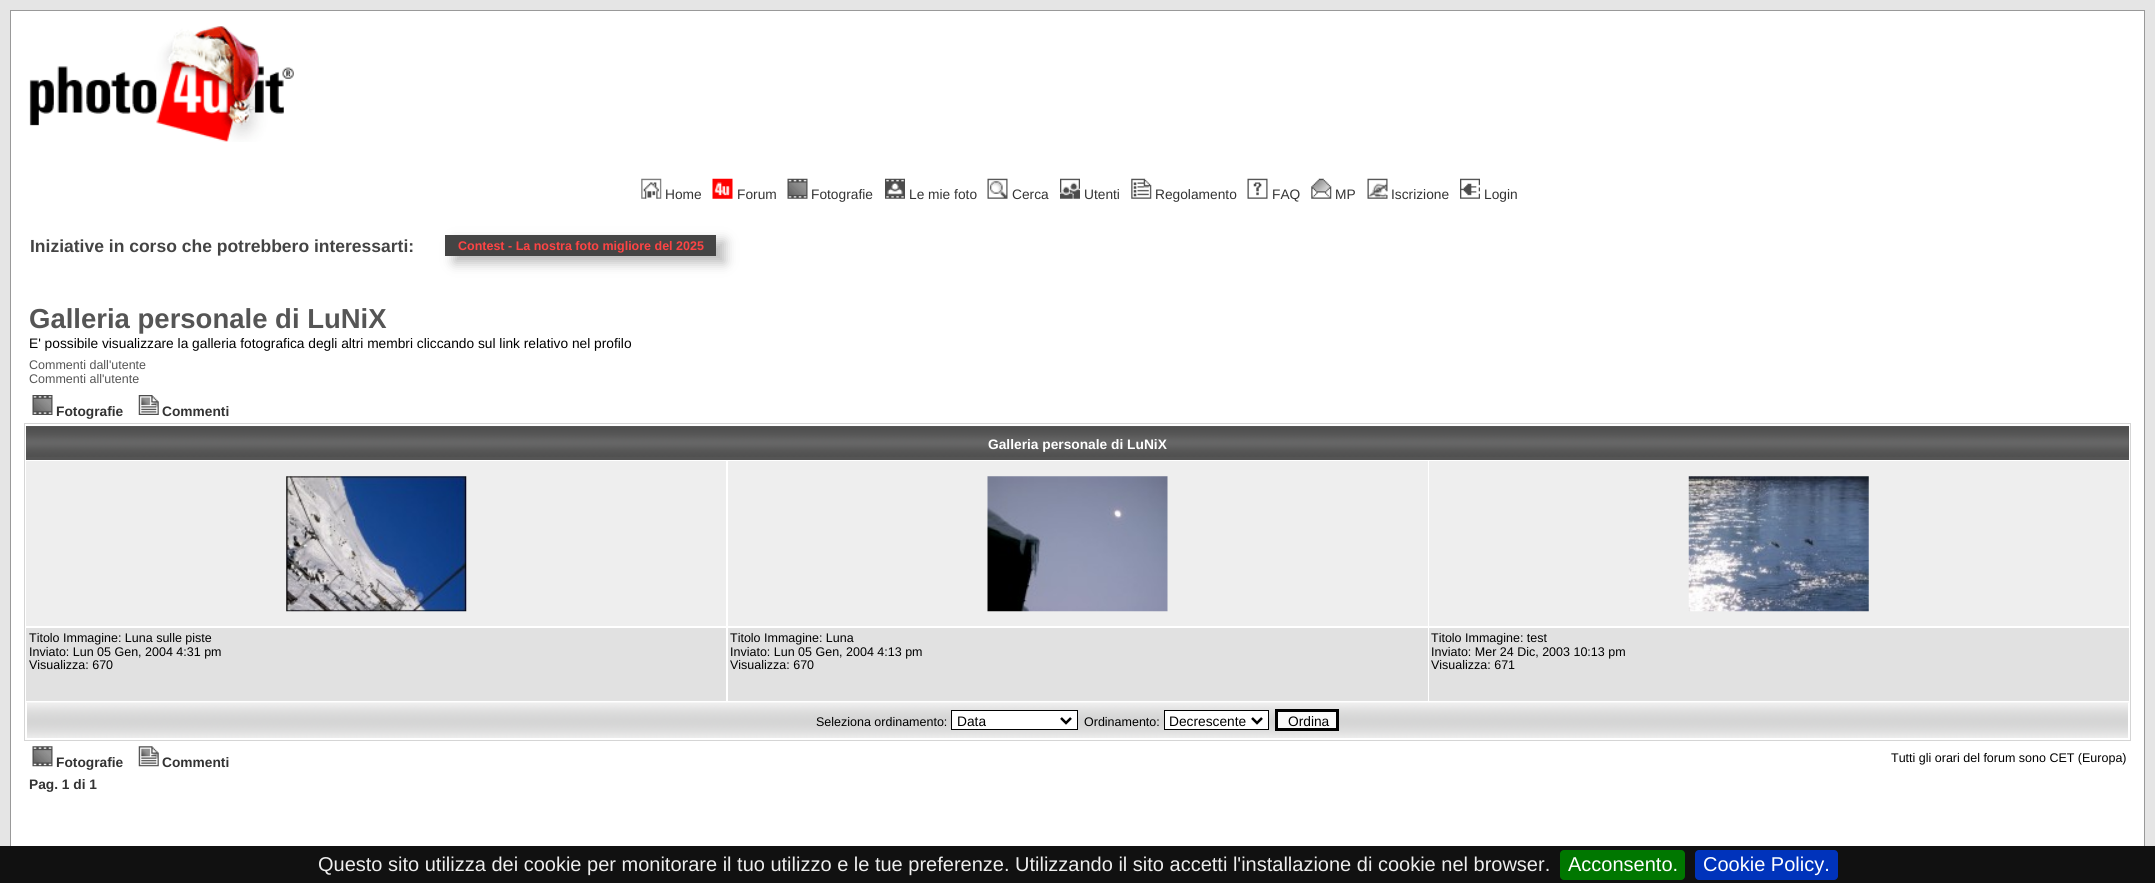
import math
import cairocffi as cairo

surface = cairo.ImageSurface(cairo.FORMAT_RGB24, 2155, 883)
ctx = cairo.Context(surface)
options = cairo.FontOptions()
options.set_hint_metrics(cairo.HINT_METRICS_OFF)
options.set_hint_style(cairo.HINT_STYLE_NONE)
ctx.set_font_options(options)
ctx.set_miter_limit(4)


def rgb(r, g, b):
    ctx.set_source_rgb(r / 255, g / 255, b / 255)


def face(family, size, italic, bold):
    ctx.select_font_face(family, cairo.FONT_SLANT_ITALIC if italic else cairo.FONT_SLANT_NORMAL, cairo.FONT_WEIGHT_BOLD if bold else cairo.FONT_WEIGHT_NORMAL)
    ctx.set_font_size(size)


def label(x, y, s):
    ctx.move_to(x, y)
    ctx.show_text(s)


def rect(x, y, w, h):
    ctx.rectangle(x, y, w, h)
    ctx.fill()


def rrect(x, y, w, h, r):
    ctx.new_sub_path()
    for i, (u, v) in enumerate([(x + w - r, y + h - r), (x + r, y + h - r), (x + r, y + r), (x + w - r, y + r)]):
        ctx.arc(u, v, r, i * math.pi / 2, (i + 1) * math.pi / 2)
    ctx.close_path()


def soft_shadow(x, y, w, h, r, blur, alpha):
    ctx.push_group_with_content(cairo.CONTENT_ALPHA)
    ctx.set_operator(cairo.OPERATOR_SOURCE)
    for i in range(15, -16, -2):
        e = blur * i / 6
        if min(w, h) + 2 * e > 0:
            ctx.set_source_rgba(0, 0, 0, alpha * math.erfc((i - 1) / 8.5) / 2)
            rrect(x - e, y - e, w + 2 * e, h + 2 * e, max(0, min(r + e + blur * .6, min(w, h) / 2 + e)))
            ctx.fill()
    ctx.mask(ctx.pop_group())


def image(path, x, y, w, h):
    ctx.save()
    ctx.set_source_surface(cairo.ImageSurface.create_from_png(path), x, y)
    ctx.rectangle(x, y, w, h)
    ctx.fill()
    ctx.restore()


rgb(229, 229, 229)
ctx.paint()
rgb(255, 255, 255)
rect(11, 11, 2133, 835)
ctx.rectangle(10.5, 10.5, 2134, 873)
rgb(153, 153, 153)
ctx.set_line_width(1)
ctx.stroke()
image('image0.png', 29, 26, 265, 116)
image('image1.png', 641, 178, 21, 21)
face('Liberation Sans', 13.75, 0, 0)
rgb(51, 51, 51)
label(665, 199, 'Home')
image('image2.png', 712, 178, 21, 21)
label(737, 199, 'Forum')
image('image3.png', 787, 178, 21, 21)
label(811, 199, 'Fotografie')
image('image4.png', 885, 178, 20, 21)
label(909, 199, 'Le mie foto')
image('image5.png', 987, 178, 21, 21)
label(1012, 199, 'Cerca')
image('image6.png', 1060, 178, 20, 21)
label(1084, 199, 'Utenti')
image('image7.png', 1131, 178, 21, 21)
label(1155, 199, 'Regolamento')
image('image8.png', 1247, 178, 21, 21)
label(1272, 199, 'FAQ')
image('image9.png', 1311, 178, 21, 21)
label(1335, 199, 'MP')
image('image10.png', 1367, 178, 21, 21)
label(1391, 199, 'Iscrizione')
image('image11.png', 1460, 178, 20, 21)
label(1484, 199, 'Login')
face('Liberation Sans', 17.5, 0, 1)
rgb(68, 68, 68)
label(30, 252, 'Iniziative in corso che potrebbero interessarti:')
rgb(187, 187, 187)
soft_shadow(454, 241, 271, 22, 0, 6, 1)
rgb(68, 68, 68)
rect(445, 235, 271, 21)
face('Liberation Sans', 12.5, 0, 1)
rgb(255, 68, 68)
label(458, 250, 'Contest - La nostra foto migliore del 2025')
face('Liberation Sans', 27.5, 0, 1)
rgb(85, 85, 85)
label(29, 328, 'Galleria personale di LuNiX')
face('Liberation Sans', 13.75, 0, 0)
rgb(0, 0, 0)
label(29, 348, 'E\' possibile visualizzare la galleria fotografica degli altri membri cliccando sul link relativo nel profilo')
face('Liberation Sans', 12.5, 0, 0)
rgb(85, 85, 85)
label(29, 369, 'Commenti dall\'utente')
label(29, 383, 'Commenti all\'utente')
image('image12.png', 32, 395, 21, 20)
face('Liberation Sans', 13.75, 0, 1)
rgb(51, 51, 51)
label(56, 416, 'Fotografie')
image('image13.png', 138, 395, 21, 20)
label(162, 416, 'Commenti')
ctx.rectangle(24.5, 423.5, 2106, 317)
rgb(213, 213, 213)
ctx.stroke()
rgb(85, 85, 85)
rect(26, 426, 2103, 34)
image('image14.png', 26, 427, 2103, 30)
rgb(255, 255, 255)
label(988, 449, 'Galleria personale di LuNiX')
rgb(238, 238, 238)
rect(26, 461, 700, 165)
image('image15.png', 286, 476, 181, 136)
rect(728, 461, 700, 165)
image('image16.png', 987, 476, 181, 136)
rect(1429, 461, 700, 165)
image('image17.png', 1688, 476, 181, 136)
rgb(225, 225, 225)
rect(26, 628, 700, 73)
face('Liberation Sans', 12.5, 0, 0)
rgb(0, 0, 0)
label(29, 642, 'Titolo Immagine: Luna sulle piste')
label(29, 656, 'Inviato: Lun 05 Gen, 2004 4:31 pm')
label(29, 669, 'Visualizza: 670')
rgb(225, 225, 225)
rect(728, 628, 700, 73)
rgb(0, 0, 0)
label(730, 642, 'Titolo Immagine: Luna')
label(730, 656, 'Inviato: Lun 05 Gen, 2004 4:13 pm')
label(730, 669, 'Visualizza: 670')
rgb(225, 225, 225)
rect(1429, 628, 700, 73)
rgb(0, 0, 0)
label(1431, 642, 'Titolo Immagine: test')
label(1431, 656, 'Inviato: Mer 24 Dic, 2003 10:13 pm')
label(1431, 669, 'Visualizza: 671')
image('image18.png', 26, 702, 2103, 36)
rgb(255, 255, 255)
rect(2128, 703, 1, 36)
rect(26, 703, 1, 36)
rgb(0, 0, 0)
label(816, 726, 'Seleziona ordinamento:')
rgb(255, 255, 255)
ctx.rectangle(951.5, 710.5, 126, 19)
ctx.fill_preserve()
rgb(0, 0, 0)
ctx.stroke()
ctx.new_path()
ctx.move_to(1061, 718)
ctx.line_to(1066, 723)
ctx.line_to(1071, 718)
ctx.set_line_width(2.5)
ctx.stroke()
face('Liberation Sans', 13.75, 0, 0)
label(957, 726, 'Data')
face('Liberation Sans', 12.5, 0, 0)
label(1084, 726, 'Ordinamento:')
rgb(255, 255, 255)
ctx.rectangle(1164.5, 710.5, 104, 19)
ctx.fill_preserve()
rgb(0, 0, 0)
ctx.set_line_width(1)
ctx.stroke()
ctx.new_path()
ctx.move_to(1252, 718)
ctx.line_to(1257, 723)
ctx.line_to(1262, 718)
ctx.set_line_width(2.5)
ctx.stroke()
face('Liberation Sans', 13.75, 0, 0)
label(1169, 726, 'Decrescente')
rgb(250, 250, 250)
ctx.rectangle(1276.5, 710.5, 61, 19)
ctx.fill_preserve()
rgb(0, 0, 0)
ctx.set_line_width(3)
ctx.stroke()
label(1288, 726, 'Ordina')
image('image19.png', 32, 746, 21, 21)
face('Liberation Sans', 13.75, 0, 1)
rgb(51, 51, 51)
label(56, 767, 'Fotografie')
image('image20.png', 138, 746, 21, 21)
label(162, 767, 'Commenti')
face('Liberation Sans', 12.5, 0, 0)
rgb(0, 0, 0)
label(1891, 762, 'Tutti gli orari del forum sono CET (Europa)')
face('Liberation Sans', 13.75, 0, 1)
rgb(51, 51, 51)
label(29, 789, 'Pag. 1 di 1')
rgb(17, 17, 17)
rect(0, 846, 2155, 37)
face('Liberation Sans', 20, 0, 0)
rgb(238, 238, 238)
label(318, 871, 'Questo sito utilizza dei cookie per monitorare il tuo utilizzo e le tue preferenze. Utilizzando il sito accetti l\'installazione di cookie nel browser.')
rgb(0, 119, 0)
rrect(1560, 850, 125, 30, 4)
ctx.fill()
rgb(255, 255, 255)
label(1568, 871, 'Acconsento.')
rgb(0, 51, 187)
rrect(1695, 850, 143, 30, 4)
ctx.fill()
rgb(255, 255, 255)
label(1703, 871, 'Cookie Policy.')
surface.write_to_png('render.png')
